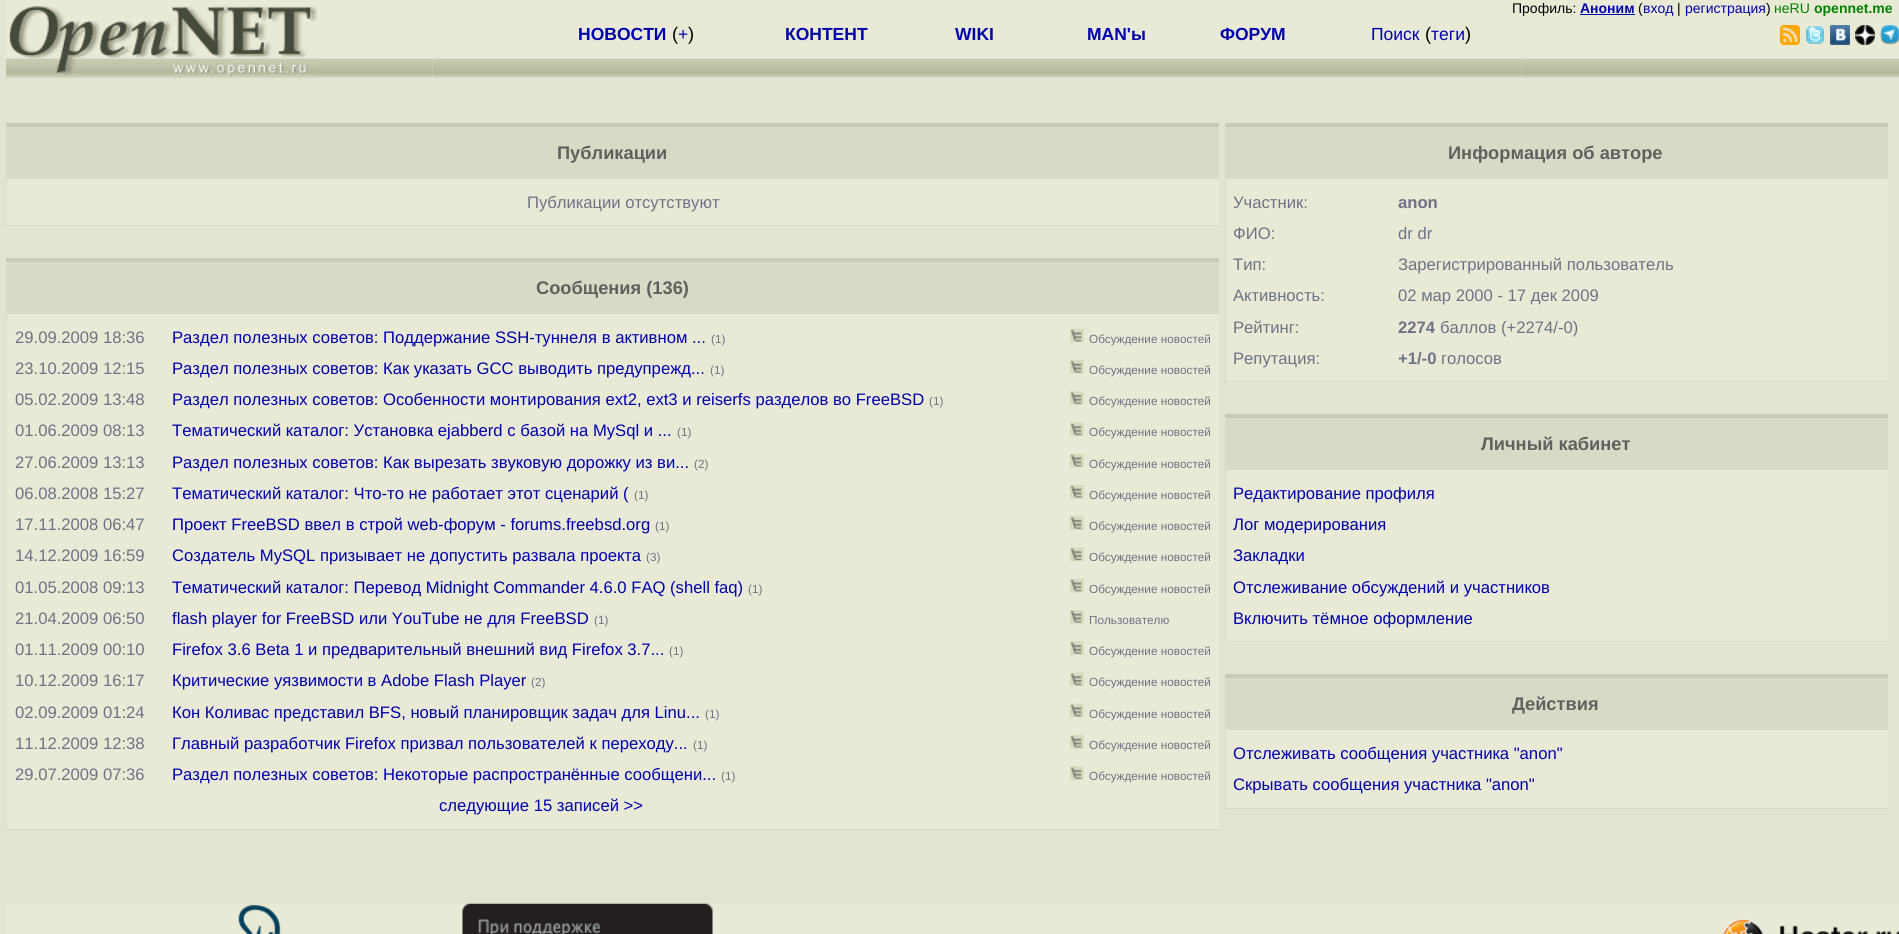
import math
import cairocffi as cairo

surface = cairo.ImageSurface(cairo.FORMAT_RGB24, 1899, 934)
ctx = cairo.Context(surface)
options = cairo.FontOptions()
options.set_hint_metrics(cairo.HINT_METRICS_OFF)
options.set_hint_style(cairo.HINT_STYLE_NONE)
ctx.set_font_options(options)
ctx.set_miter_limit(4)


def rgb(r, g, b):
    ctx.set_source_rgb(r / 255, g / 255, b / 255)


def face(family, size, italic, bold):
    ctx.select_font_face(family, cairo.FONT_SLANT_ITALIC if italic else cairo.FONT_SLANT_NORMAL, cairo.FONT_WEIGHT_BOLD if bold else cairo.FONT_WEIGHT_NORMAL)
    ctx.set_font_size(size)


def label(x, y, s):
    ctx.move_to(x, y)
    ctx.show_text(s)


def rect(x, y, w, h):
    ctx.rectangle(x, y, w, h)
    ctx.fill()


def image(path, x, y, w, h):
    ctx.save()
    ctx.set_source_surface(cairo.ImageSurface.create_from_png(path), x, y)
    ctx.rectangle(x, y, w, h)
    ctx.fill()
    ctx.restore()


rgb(227, 228, 208)
ctx.paint()
rgb(233, 234, 214)
rect(6, 0, 1893, 3)
rect(6, 3, 1893, 75)
face('Liberation Sans', 14, 0, 0)
rgb(0, 0, 0)
label(1512, 13, 'Профиль:')
face('Liberation Sans', 14, 0, 1)
rgb(0, 0, 173)
label(1580, 13, 'Аноним')
rect(1580, 14, 55, 1)
face('Liberation Sans', 14, 0, 0)
rgb(0, 0, 0)
label(1638, 13, '(')
rgb(0, 0, 173)
label(1643, 13, 'вход')
rgb(0, 0, 0)
label(1677, 13, '|')
rgb(0, 0, 173)
label(1685, 13, 'регистрация')
rgb(0, 0, 0)
label(1766, 13, ')')
rgb(0, 128, 0)
label(1774, 13, 'неRU')
face('Liberation Sans', 14, 0, 1)
label(1814, 13, 'opennet.me')
image('image0.png', 6, 58, 427, 20)
image('image1.png', 6, 5, 312, 73)
image('image2.png', 575, 58, 946, 20)
face('Liberation Sans', 17.5, 0, 1)
rgb(0, 0, 173)
label(578, 40, 'НОВОСТИ')
face('Liberation Sans', 18.25, 0, 0)
rgb(0, 0, 0)
label(672, 40, '(')
face('Liberation Sans', 17.5, 0, 0)
rgb(0, 0, 173)
label(678, 40, '+')
face('Liberation Sans', 18.25, 0, 0)
rgb(0, 0, 0)
label(688, 40, ')')
face('Liberation Sans', 17.5, 0, 1)
rgb(0, 0, 173)
label(785, 40, 'КОНТЕНТ')
label(955, 40, 'WIKI')
label(1087, 40, 'MAN\'ы')
label(1220, 40, 'ФОРУМ')
face('Liberation Sans', 17.5, 0, 0)
label(1371, 40, 'Поиск')
face('Liberation Sans', 18.25, 0, 0)
rgb(0, 0, 0)
label(1425, 40, '(')
face('Liberation Sans', 17.5, 0, 0)
rgb(0, 0, 173)
label(1431, 40, 'теги')
face('Liberation Sans', 18.25, 0, 0)
rgb(0, 0, 0)
label(1465, 40, ')')
image('image3.png', 1521, 58, 378, 20)
image('image4.png', 1780, 25, 20, 20)
image('image5.png', 1806, 26, 18, 18)
image('image6.png', 1830, 25, 20, 20)
image('image7.png', 1855, 25, 20, 20)
image('image8.png', 1880, 25, 19, 20)
image('image9.png', 432, 58, 143, 20)
rgb(217, 218, 198)
rect(6, 127, 1213, 52)
rgb(201, 202, 182)
rect(6, 123, 1213, 4)
face('Liberation Sans', 18.25, 0, 1)
rgb(96, 96, 96)
label(557, 159, 'Публикации')
rgb(233, 234, 214)
rect(7, 179, 1212, 46)
rgb(217, 218, 198)
rect(6, 225, 1213, 1)
rect(6, 179, 1, 47)
face('Liberation Sans', 16.65, 0, 0)
rgb(112, 112, 136)
label(527, 208, 'Публикации отсутствуют')
rgb(217, 218, 198)
rect(6, 262, 1213, 52)
rgb(201, 202, 182)
rect(6, 258, 1213, 4)
face('Liberation Sans', 18.25, 0, 1)
rgb(96, 96, 96)
label(536, 294, 'Сообщения (136)')
rgb(233, 234, 214)
rect(7, 314, 1212, 515)
rgb(217, 218, 198)
rect(6, 829, 1213, 1)
rect(6, 314, 1, 516)
face('Liberation Sans', 16.65, 0, 0)
rgb(112, 112, 136)
label(15, 343, '29.09.2009 18:36')
rgb(0, 0, 173)
label(172, 343, 'Раздел полезных советов: Поддержание SSH-туннеля в активном ...')
face('Liberation Sans', 11.75, 0, 0)
rgb(112, 112, 136)
label(711, 343, '(1)')
image('image10.png', 1070, 328, 14, 15)
label(1089, 343, 'Обсуждение новостей')
face('Liberation Sans', 16.65, 0, 0)
label(15, 374, '23.10.2009 12:15')
rgb(0, 0, 173)
label(172, 374, 'Раздел полезных советов: Как указать GCC выводить предупрежд...')
face('Liberation Sans', 11.75, 0, 0)
rgb(112, 112, 136)
label(710, 374, '(1)')
image('image11.png', 1070, 360, 14, 14)
label(1089, 374, 'Обсуждение новостей')
face('Liberation Sans', 16.65, 0, 0)
label(15, 405, '05.02.2009 13:48')
rgb(0, 0, 173)
label(172, 405, 'Раздел полезных советов: Особенности монтирования ext2, ext3 и reiserfs разделов во FreeBSD')
face('Liberation Sans', 11.75, 0, 0)
rgb(112, 112, 136)
label(929, 405, '(1)')
image('image12.png', 1070, 391, 14, 14)
label(1089, 405, 'Обсуждение новостей')
face('Liberation Sans', 16.65, 0, 0)
label(15, 436, '01.06.2009 08:13')
rgb(0, 0, 173)
label(172, 436, 'Тематический каталог: Установка ejabberd с базой на MySql и ...')
face('Liberation Sans', 11.75, 0, 0)
rgb(112, 112, 136)
label(677, 436, '(1)')
image('image13.png', 1070, 422, 14, 15)
label(1089, 436, 'Обсуждение новостей')
face('Liberation Sans', 16.65, 0, 0)
label(15, 468, '27.06.2009 13:13')
rgb(0, 0, 173)
label(172, 468, 'Раздел полезных советов: Как вырезать звуковую дорожку из ви...')
face('Liberation Sans', 11.75, 0, 0)
rgb(112, 112, 136)
label(694, 468, '(2)')
image('image10.png', 1070, 453, 14, 15)
label(1089, 468, 'Обсуждение новостей')
face('Liberation Sans', 16.65, 0, 0)
label(15, 499, '06.08.2008 15:27')
rgb(0, 0, 173)
label(172, 499, 'Тематический каталог: Что-то не работает этот сценарий (')
face('Liberation Sans', 11.75, 0, 0)
rgb(112, 112, 136)
label(634, 499, '(1)')
image('image11.png', 1070, 485, 14, 14)
label(1089, 499, 'Обсуждение новостей')
face('Liberation Sans', 16.65, 0, 0)
label(15, 530, '17.11.2008 06:47')
rgb(0, 0, 173)
label(172, 530, 'Проект FreeBSD ввел в строй web-форум - forums.freebsd.org')
face('Liberation Sans', 11.75, 0, 0)
rgb(112, 112, 136)
label(655, 530, '(1)')
image('image12.png', 1070, 516, 14, 14)
label(1089, 530, 'Обсуждение новостей')
face('Liberation Sans', 16.65, 0, 0)
label(15, 561, '14.12.2009 16:59')
rgb(0, 0, 173)
label(172, 561, 'Создатель MySQL призывает не допустить развала проекта')
face('Liberation Sans', 11.75, 0, 0)
rgb(112, 112, 136)
label(646, 561, '(3)')
image('image13.png', 1070, 547, 14, 15)
label(1089, 561, 'Обсуждение новостей')
face('Liberation Sans', 16.65, 0, 0)
label(15, 593, '01.05.2008 09:13')
rgb(0, 0, 173)
label(172, 593, 'Тематический каталог: Перевод Midnight Commander 4.6.0 FAQ (shell faq)')
face('Liberation Sans', 11.75, 0, 0)
rgb(112, 112, 136)
label(748, 593, '(1)')
image('image10.png', 1070, 578, 14, 15)
label(1089, 593, 'Обсуждение новостей')
face('Liberation Sans', 16.65, 0, 0)
label(15, 624, '21.04.2009 06:50')
rgb(0, 0, 173)
label(172, 624, 'flash player for FreeBSD или YouTube не для FreeBSD')
face('Liberation Sans', 11.75, 0, 0)
rgb(112, 112, 136)
label(594, 624, '(1)')
image('image11.png', 1070, 610, 14, 14)
label(1089, 624, 'Пользователю')
face('Liberation Sans', 16.65, 0, 0)
label(15, 655, '01.11.2009 00:10')
rgb(0, 0, 173)
label(172, 655, 'Firefox 3.6 Beta 1 и предварительный внешний вид Firefox 3.7...')
face('Liberation Sans', 11.75, 0, 0)
rgb(112, 112, 136)
label(669, 655, '(1)')
image('image12.png', 1070, 641, 14, 14)
label(1089, 655, 'Обсуждение новостей')
face('Liberation Sans', 16.65, 0, 0)
label(15, 686, '10.12.2009 16:17')
rgb(0, 0, 173)
label(172, 686, 'Критические уязвимости в Adobe Flash Player')
face('Liberation Sans', 11.75, 0, 0)
rgb(112, 112, 136)
label(531, 686, '(2)')
image('image13.png', 1070, 672, 14, 15)
label(1089, 686, 'Обсуждение новостей')
face('Liberation Sans', 16.65, 0, 0)
label(15, 718, '02.09.2009 01:24')
rgb(0, 0, 173)
label(172, 718, 'Кон Коливас представил BFS, новый планировщик задач для Linu...')
face('Liberation Sans', 11.75, 0, 0)
rgb(112, 112, 136)
label(705, 718, '(1)')
image('image10.png', 1070, 703, 14, 15)
label(1089, 718, 'Обсуждение новостей')
face('Liberation Sans', 16.65, 0, 0)
label(15, 749, '11.12.2009 12:38')
rgb(0, 0, 173)
label(172, 749, 'Главный разработчик Firefox призвал пользователей к переходу...')
face('Liberation Sans', 11.75, 0, 0)
rgb(112, 112, 136)
label(693, 749, '(1)')
image('image11.png', 1070, 735, 14, 14)
label(1089, 749, 'Обсуждение новостей')
face('Liberation Sans', 16.65, 0, 0)
label(15, 780, '29.07.2009 07:36')
rgb(0, 0, 173)
label(172, 780, 'Раздел полезных советов: Некоторые распространённые сообщени...')
face('Liberation Sans', 11.75, 0, 0)
rgb(112, 112, 136)
label(721, 780, '(1)')
image('image12.png', 1070, 766, 14, 14)
label(1089, 780, 'Обсуждение новостей')
face('Liberation Sans', 16.65, 0, 0)
rgb(0, 0, 173)
label(439, 811, 'следующие 15 записей >>')
rgb(217, 218, 198)
rect(1225, 127, 663, 52)
rgb(201, 202, 182)
rect(1225, 123, 663, 4)
face('Liberation Sans', 18.25, 0, 1)
rgb(96, 96, 96)
label(1448, 159, 'Информация об авторе')
rgb(233, 234, 214)
rect(1226, 179, 662, 204)
rgb(217, 218, 198)
rect(1225, 381, 663, 1)
rect(1225, 179, 1, 204)
face('Liberation Sans', 16.65, 0, 0)
rgb(112, 112, 136)
label(1233, 208, 'Участник:')
face('Liberation Sans', 16.65, 0, 1)
label(1398, 208, 'anon')
face('Liberation Sans', 16.65, 0, 0)
label(1233, 239, 'ФИО:')
label(1398, 239, 'dr dr')
label(1233, 270, 'Тип:')
label(1398, 270, 'Зарегистрированный пользователь')
label(1233, 301, 'Активность:')
label(1398, 301, '02 мар 2000 - 17 дек 2009')
label(1233, 333, 'Рейтинг:')
face('Liberation Sans', 16.65, 0, 1)
label(1398, 333, '2274')
face('Liberation Sans', 16.65, 0, 0)
label(1440, 333, 'баллов (+2274/-0)')
label(1233, 364, 'Репутация:')
face('Liberation Sans', 16.65, 0, 1)
label(1398, 364, '+1/-0')
face('Liberation Sans', 16.65, 0, 0)
label(1441, 364, 'голосов')
rgb(217, 218, 198)
rect(1225, 418, 663, 52)
rgb(201, 202, 182)
rect(1225, 414, 663, 4)
face('Liberation Sans', 18.25, 0, 1)
rgb(96, 96, 96)
label(1481, 450, 'Личный кабинет')
rgb(233, 234, 214)
rect(1226, 470, 662, 173)
rgb(217, 218, 198)
rect(1225, 641, 663, 1)
rect(1225, 470, 1, 173)
face('Liberation Sans', 16.65, 0, 0)
rgb(0, 0, 173)
label(1233, 499, 'Редактирование профиля')
label(1233, 530, 'Лог модерирования')
label(1233, 561, 'Закладки')
label(1233, 593, 'Отслеживание обсуждений и участников')
label(1233, 624, 'Включить тёмное оформление')
rgb(217, 218, 198)
rect(1225, 678, 663, 52)
rgb(201, 202, 182)
rect(1225, 674, 663, 4)
face('Liberation Sans', 18.25, 0, 1)
rgb(96, 96, 96)
label(1512, 710, 'Действия')
rgb(233, 234, 214)
rect(1226, 730, 662, 78)
rgb(217, 218, 198)
rect(1225, 808, 663, 1)
rect(1225, 730, 1, 79)
face('Liberation Sans', 16.65, 0, 0)
rgb(0, 0, 173)
label(1233, 759, 'Отслеживать сообщения участника "anon"')
label(1233, 790, 'Скрывать сообщения участника "anon"')
rgb(233, 234, 214)
rect(6, 904, 1893, 30)
image('image14.png', 238, 904, 43, 30)
image('image15.png', 462, 903, 251, 31)
image('image16.png', 1722, 918, 177, 16)
surface.write_to_png('render.png')
